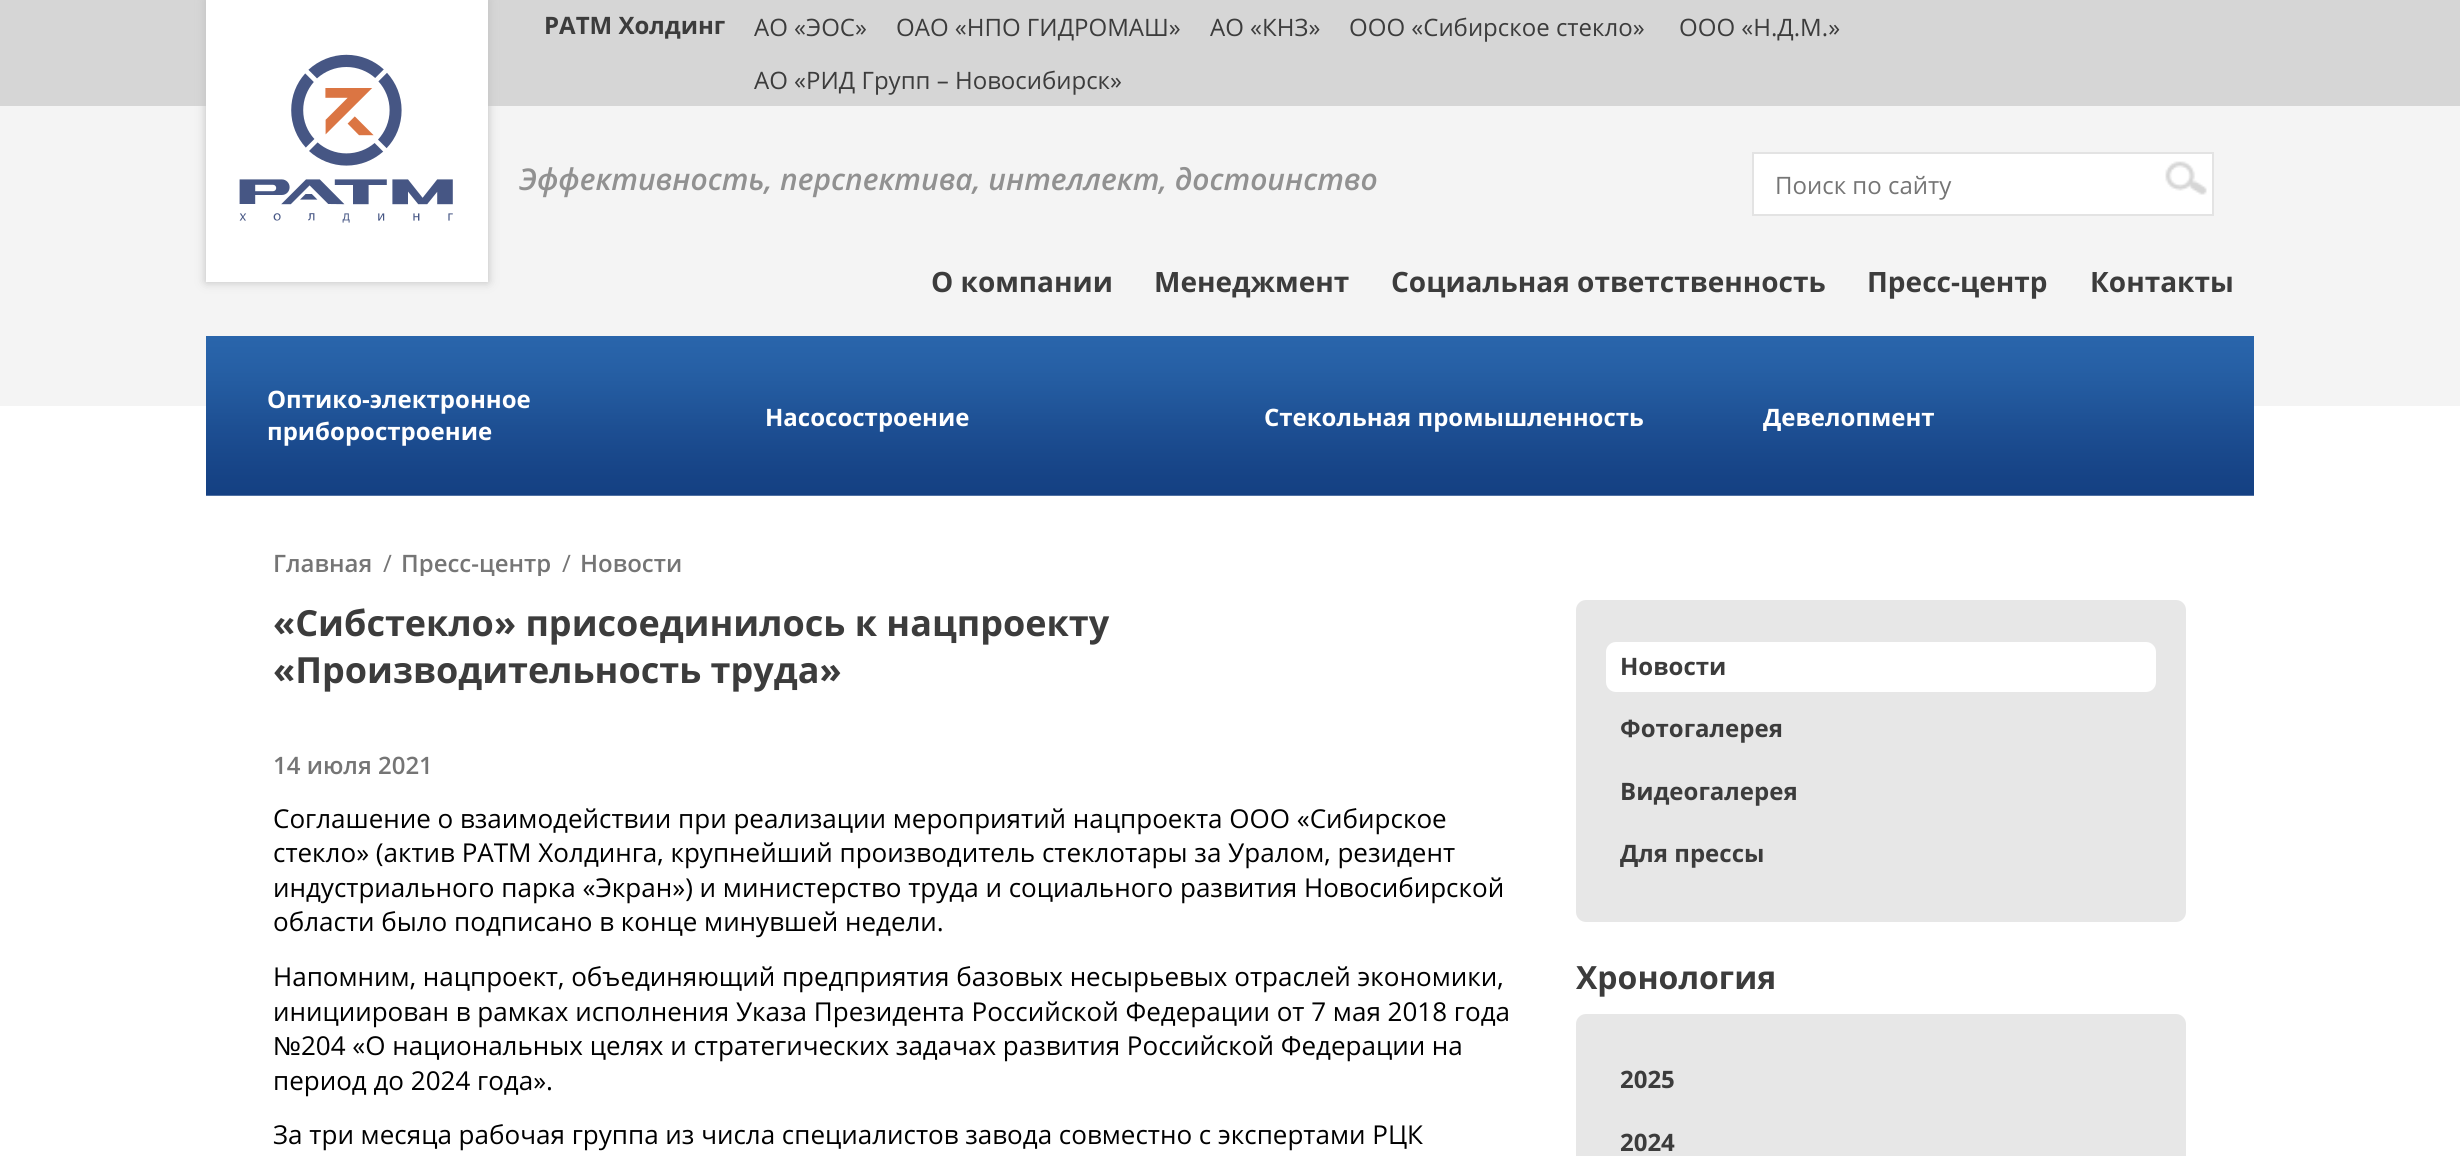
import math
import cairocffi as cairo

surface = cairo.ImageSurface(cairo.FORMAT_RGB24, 2460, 1156)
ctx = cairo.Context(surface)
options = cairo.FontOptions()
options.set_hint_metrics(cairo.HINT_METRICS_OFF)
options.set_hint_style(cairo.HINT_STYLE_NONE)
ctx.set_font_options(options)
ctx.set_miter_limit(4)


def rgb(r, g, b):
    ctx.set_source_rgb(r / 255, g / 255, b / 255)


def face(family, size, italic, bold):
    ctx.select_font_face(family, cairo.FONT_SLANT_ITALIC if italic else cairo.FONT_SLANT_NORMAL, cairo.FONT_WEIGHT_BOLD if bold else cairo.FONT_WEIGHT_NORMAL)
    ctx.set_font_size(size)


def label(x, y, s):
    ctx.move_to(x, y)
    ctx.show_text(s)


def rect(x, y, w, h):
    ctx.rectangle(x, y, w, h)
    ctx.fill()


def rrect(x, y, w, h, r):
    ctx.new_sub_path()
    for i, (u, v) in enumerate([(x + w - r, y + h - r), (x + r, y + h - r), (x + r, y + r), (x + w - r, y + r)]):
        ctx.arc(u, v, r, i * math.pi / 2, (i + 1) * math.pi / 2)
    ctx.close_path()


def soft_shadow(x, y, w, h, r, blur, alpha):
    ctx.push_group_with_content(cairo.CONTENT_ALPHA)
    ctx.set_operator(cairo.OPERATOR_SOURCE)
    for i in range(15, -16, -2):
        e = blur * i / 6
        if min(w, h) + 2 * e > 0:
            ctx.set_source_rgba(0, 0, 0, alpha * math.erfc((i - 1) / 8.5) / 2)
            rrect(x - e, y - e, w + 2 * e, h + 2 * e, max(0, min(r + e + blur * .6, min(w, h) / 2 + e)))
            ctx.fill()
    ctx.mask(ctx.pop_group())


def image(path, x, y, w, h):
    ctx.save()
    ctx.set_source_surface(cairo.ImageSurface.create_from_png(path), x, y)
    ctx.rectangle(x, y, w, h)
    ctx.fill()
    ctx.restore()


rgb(255, 255, 255)
ctx.paint()
rgb(214, 214, 214)
rect(0, 0, 2460, 106)
rgb(244, 244, 244)
rect(0, 106, 2460, 300)
rgb(191, 191, 191)
soft_shadow(206, 0, 282, 282, 0, 5, 1)
rgb(255, 255, 255)
rect(206, 0, 282, 282)
image('image0.png', 239, 54, 214, 169)
face('Open Sans', 24, 0, 1)
rgb(60, 60, 60)
label(544, 34, 'РАТМ Холдинг')
face('Open Sans', 24, 0, 0)
label(754, 36, 'АО «ЭОС»')
label(896, 36, 'ОАО «НПО ГИДРОМАШ»')
label(1210, 36, 'АО «КНЗ»')
label(1349, 36, 'ООО «Сибирское стекло»')
label(1679, 36, 'ООО «Н.Д.М.»')
label(754, 89, 'АО «РИД Групп – Новосибирск»')
face('Open Sans SemiBold', 30, 1, 0)
rgb(145, 145, 145)
label(519, 190, 'Эффективность, перспектива, интеллект, достоинство')
rgb(255, 255, 255)
ctx.rectangle(1753, 153, 460, 62)
ctx.fill_preserve()
rgb(227, 227, 227)
ctx.stroke()
face('Open Sans', 24, 0, 0)
rgb(117, 117, 117)
label(1775, 194, 'Поиск по сайту')
image('image1.png', 2165, 161, 42, 34)
face('Open Sans', 28, 0, 1)
rgb(60, 60, 60)
label(931, 292, 'О компании')
label(1154, 292, 'Менеджмент')
label(1391, 292, 'Социальная ответственность')
label(1867, 292, 'Пресс-центр')
label(2090, 292, 'Контакты')
image('image2.png', 206, 336, 2048, 160)
face('Open Sans', 24, 0, 1)
rgb(255, 255, 255)
label(267, 408, 'Оптико-электронное')
label(267, 440, 'приборостроение')
label(765, 426, 'Насосостроение')
label(1264, 426, 'Стекольная промышленность')
label(1763, 426, 'Девелопмент')
face('Open Sans SemiBold', 24, 0, 0)
rgb(117, 117, 117)
label(273, 572, 'Главная')
face('Open Sans', 24, 0, 0)
label(383, 572, '/')
ctx.save()
ctx.rectangle(232, 544, 1996, 32)
ctx.clip()
face('Open Sans SemiBold', 24, 0, 0)
label(401, 572, 'Пресс-центр')
ctx.restore()
label(562, 572, '/')
face('Open Sans SemiBold', 24, 0, 0)
label(580, 572, 'Новости')
face('Open Sans', 36, 0, 1)
rgb(60, 60, 60)
label(273, 636, '«Сибстекло» присоединилось к нацпроекту')
label(273, 683, '«Производительность труда»')
face('Open Sans SemiBold', 24, 0, 0)
rgb(117, 117, 117)
label(273, 774, '14 июля 2021')
face('Open Sans', 26, 0, 0)
rgb(0, 0, 0)
label(273, 828, 'Соглашение о взаимодействии при реализации мероприятий нацпроекта ООО «Сибирское')
label(273, 862, 'стекло» (актив РАТМ Холдинга, крупнейший производитель стеклотары за Уралом, резидент')
label(273, 897, 'индустриального парка «Экран») и министерство труда и социального развития Новосибирской')
label(273, 931, 'области было подписано в конце минувшей недели.')
label(273, 986, 'Напомним, нацпроект, объединяющий предприятия базовых несырьевых отраслей экономики,')
label(273, 1021, 'инициирован в рамках исполнения Указа Президента Российской Федерации от 7 мая 2018 года')
face('Liberation Sans', 26, 0, 0)
label(273, 1055, '№')
face('Open Sans', 26, 0, 0)
label(301, 1055, '204 «О национальных целях и стратегических задачах развития Российской Федерации на')
label(273, 1090, 'период до 2024 года».')
label(273, 1144, 'За три месяца рабочая группа из числа специалистов завода совместно с экспертами РЦК')
rgb(231, 231, 231)
rrect(1576, 600, 610, 322, 10)
ctx.fill()
rgb(255, 255, 255)
rrect(1606, 642, 550, 50, 10)
ctx.fill()
face('Open Sans', 24, 0, 1)
rgb(60, 60, 60)
label(1620, 675, 'Новости')
label(1620, 737, 'Фотогалерея')
label(1620, 800, 'Видеогалерея')
label(1620, 862, 'Для прессы')
face('Open Sans', 32, 0, 1)
label(1576, 989, 'Хронология')
rgb(231, 231, 231)
rrect(1576, 1014, 610, 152, 10)
ctx.fill()
face('Open Sans', 24, 0, 1)
rgb(60, 60, 60)
label(1620, 1088, '2025')
label(1620, 1151, '2024')
surface.write_to_png('render.png')
